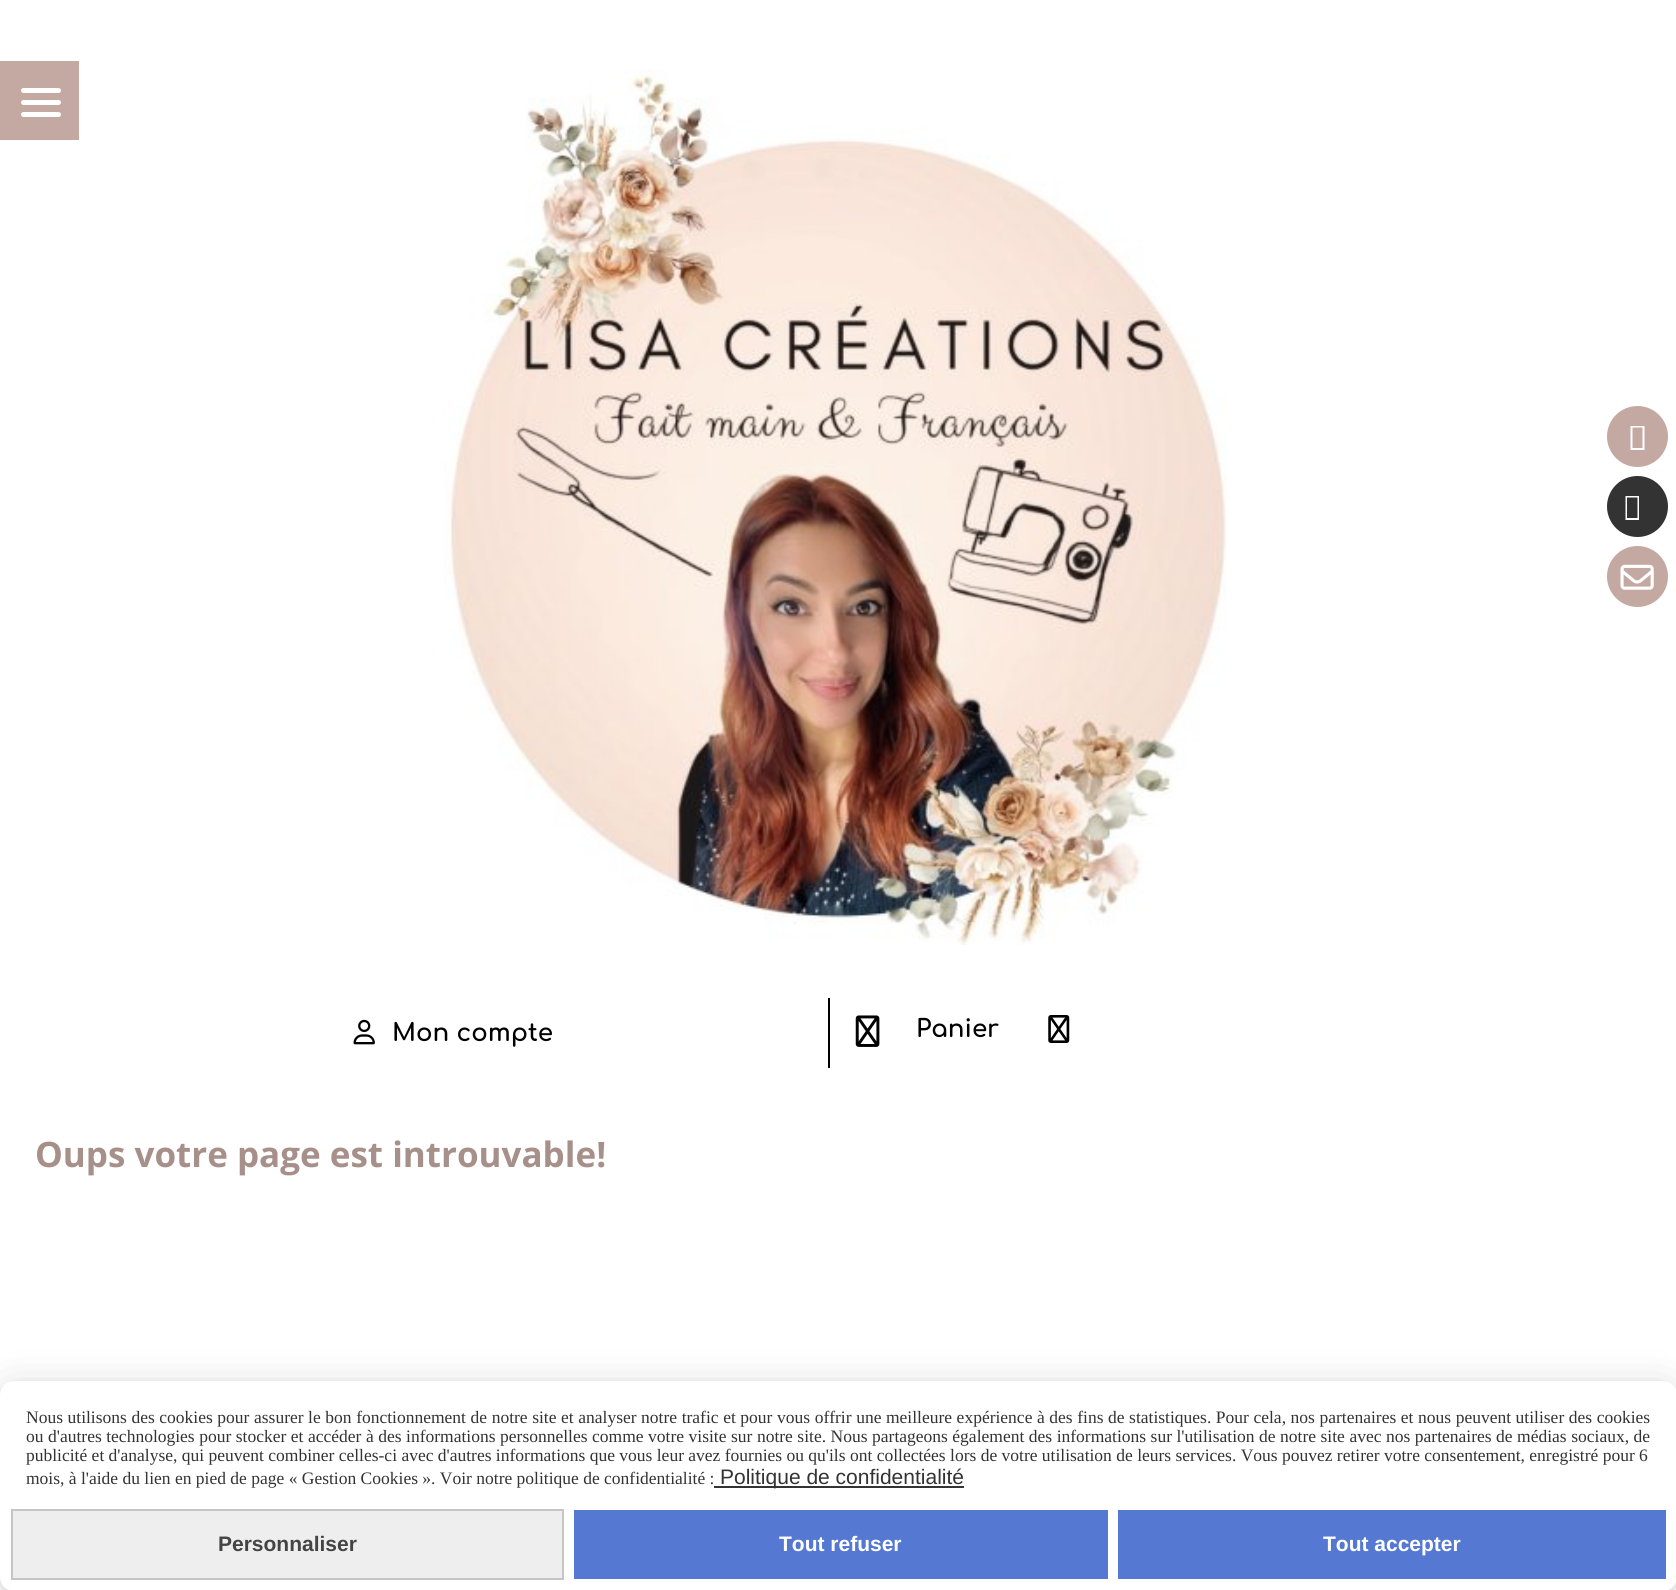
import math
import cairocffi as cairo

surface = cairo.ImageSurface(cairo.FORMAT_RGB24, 1676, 1590)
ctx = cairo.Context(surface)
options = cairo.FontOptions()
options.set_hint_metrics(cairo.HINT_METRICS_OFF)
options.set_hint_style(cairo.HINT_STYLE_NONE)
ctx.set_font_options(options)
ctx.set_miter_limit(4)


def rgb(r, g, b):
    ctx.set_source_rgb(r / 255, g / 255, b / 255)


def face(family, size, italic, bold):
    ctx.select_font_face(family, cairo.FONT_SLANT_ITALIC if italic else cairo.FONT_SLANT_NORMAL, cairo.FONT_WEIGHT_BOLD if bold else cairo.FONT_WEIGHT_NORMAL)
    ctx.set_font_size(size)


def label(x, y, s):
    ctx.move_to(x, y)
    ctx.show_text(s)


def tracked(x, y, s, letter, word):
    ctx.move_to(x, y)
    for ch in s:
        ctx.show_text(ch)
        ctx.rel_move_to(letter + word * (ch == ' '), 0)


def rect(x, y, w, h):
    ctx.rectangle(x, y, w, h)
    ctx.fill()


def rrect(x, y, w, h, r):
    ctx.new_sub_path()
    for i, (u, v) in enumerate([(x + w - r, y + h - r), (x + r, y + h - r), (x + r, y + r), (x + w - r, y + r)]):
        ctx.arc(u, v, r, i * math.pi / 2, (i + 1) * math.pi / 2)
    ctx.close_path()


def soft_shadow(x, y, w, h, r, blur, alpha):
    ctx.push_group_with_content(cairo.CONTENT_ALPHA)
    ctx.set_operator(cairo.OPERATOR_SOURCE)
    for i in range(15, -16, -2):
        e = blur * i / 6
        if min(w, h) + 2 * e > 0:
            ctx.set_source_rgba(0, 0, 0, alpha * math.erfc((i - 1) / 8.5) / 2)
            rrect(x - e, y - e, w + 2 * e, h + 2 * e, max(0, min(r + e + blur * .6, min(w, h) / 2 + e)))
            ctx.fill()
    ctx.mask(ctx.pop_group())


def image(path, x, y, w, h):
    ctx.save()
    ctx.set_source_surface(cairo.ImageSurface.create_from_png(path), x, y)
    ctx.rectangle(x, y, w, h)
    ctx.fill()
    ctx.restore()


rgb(255, 255, 255)
ctx.paint()
rgb(196, 169, 162)
ctx.arc(1637.5, 436.5, 30.5, 0, 2 * math.pi)
ctx.fill()
rgb(255, 255, 255)
ctx.new_path()
ctx.move_to(1630.5, 450)
ctx.line_to(1630.5, 426)
ctx.line_to(1644.5, 426)
ctx.line_to(1644.5, 450)
ctx.close_path()
ctx.move_to(1632.5, 448)
ctx.line_to(1642.5, 448)
ctx.line_to(1642.5, 427.5)
ctx.line_to(1632.5, 427.5)
ctx.close_path()
ctx.fill()
rgb(51, 51, 51)
ctx.arc(1637.5, 506.5, 30.5, 0, 2 * math.pi)
ctx.fill()
rgb(255, 255, 255)
ctx.new_path()
ctx.move_to(1625.5, 520)
ctx.line_to(1625.5, 496)
ctx.line_to(1639, 496)
ctx.line_to(1639, 520)
ctx.close_path()
ctx.move_to(1627, 518)
ctx.line_to(1637.5, 518)
ctx.line_to(1637.5, 497.5)
ctx.line_to(1627, 497.5)
ctx.close_path()
ctx.fill()
rgb(196, 169, 162)
ctx.arc(1637.5, 576.5, 30.5, 0, 2 * math.pi)
ctx.fill()
image('image0.png', 1620, 564, 34, 26)
rect(0, 61, 79, 79)
rgb(255, 255, 255)
rrect(21, 88, 40, 5, 2.5)
ctx.fill()
rrect(21, 100, 40, 5, 2.5)
ctx.fill()
rrect(21, 112, 40, 5, 2.5)
ctx.fill()
image('image1.png', 443, 70, 784, 875)
rgb(0, 0, 0)
rect(828, 998, 2, 70)
image('image2.png', 353, 1019, 22, 26)
face('Comfortaa', 24.5, 0, 1)
label(392, 1041, 'Mon compte')
image('image3.png', 855, 1015, 25, 32)
label(916, 1037, 'Panier')
image('image4.png', 1048, 1015, 22, 28)
face('Open Sans', 35, 0, 1)
rgb(167, 144, 138)
label(35, 1167, 'Oups votre page est introuvable!')
rgb(0, 0, 0)
soft_shadow(0, 1384, 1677, 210, 14, 5, 0.05)
soft_shadow(0, 1388, 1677, 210, 14, 21, 0.15)
rgb(255, 255, 255)
rrect(0, 1381, 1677, 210, 14)
ctx.fill()
face('Liberation Serif', 17.5, 0, 0)
rgb(51, 51, 51)
tracked(26, 1423, 'Nous utilisons des cookies pour assurer le bon fonctionnement de notre site et analyser notre trafic et pour vous offrir une meilleure expérience à des fins de statistiques. Pour cela, nos partenaires et nous peuvent utiliser des cookies', 0, 0.2)
tracked(26, 1442, 'ou d\'autres technologies pour stocker et accéder à des informations personnelles comme votre visite sur notre site. Nous partageons également des informations sur l\'utilisation de notre site avec nos partenaires de médias sociaux, de', 0, 0.15)
label(26, 1461, 'publicité et d\'analyse, qui peuvent combiner celles-ci avec d\'autres informations que vous leur avez fournies ou qu\'ils ont collectées lors de votre utilisation de leurs services. Vous pouvez retirer votre consentement, enregistré pour 6')
label(26, 1484, 'mois, à l\'aide du lien en pied de page « Gestion Cookies ». Voir notre politique de confidentialité :')
rect(714, 1486, 250, 2)
face('Liberation Sans', 21, 0, 0)
label(720, 1484, 'Politique de confidentialité')
rgb(238, 238, 238)
ctx.rectangle(12, 1510, 551, 69)
ctx.fill_preserve()
rgb(197, 197, 197)
ctx.stroke()
face('Liberation Sans', 21, 0, 1)
rgb(68, 68, 68)
label(218, 1551, 'Personnaliser')
rgb(85, 121, 210)
rect(574, 1510, 534, 69)
rgb(255, 255, 255)
label(779, 1551, 'Tout refuser')
rgb(85, 121, 210)
rect(1118, 1510, 548, 69)
rgb(255, 255, 255)
label(1323, 1551, 'Tout accepter')
surface.write_to_png('render.png')
